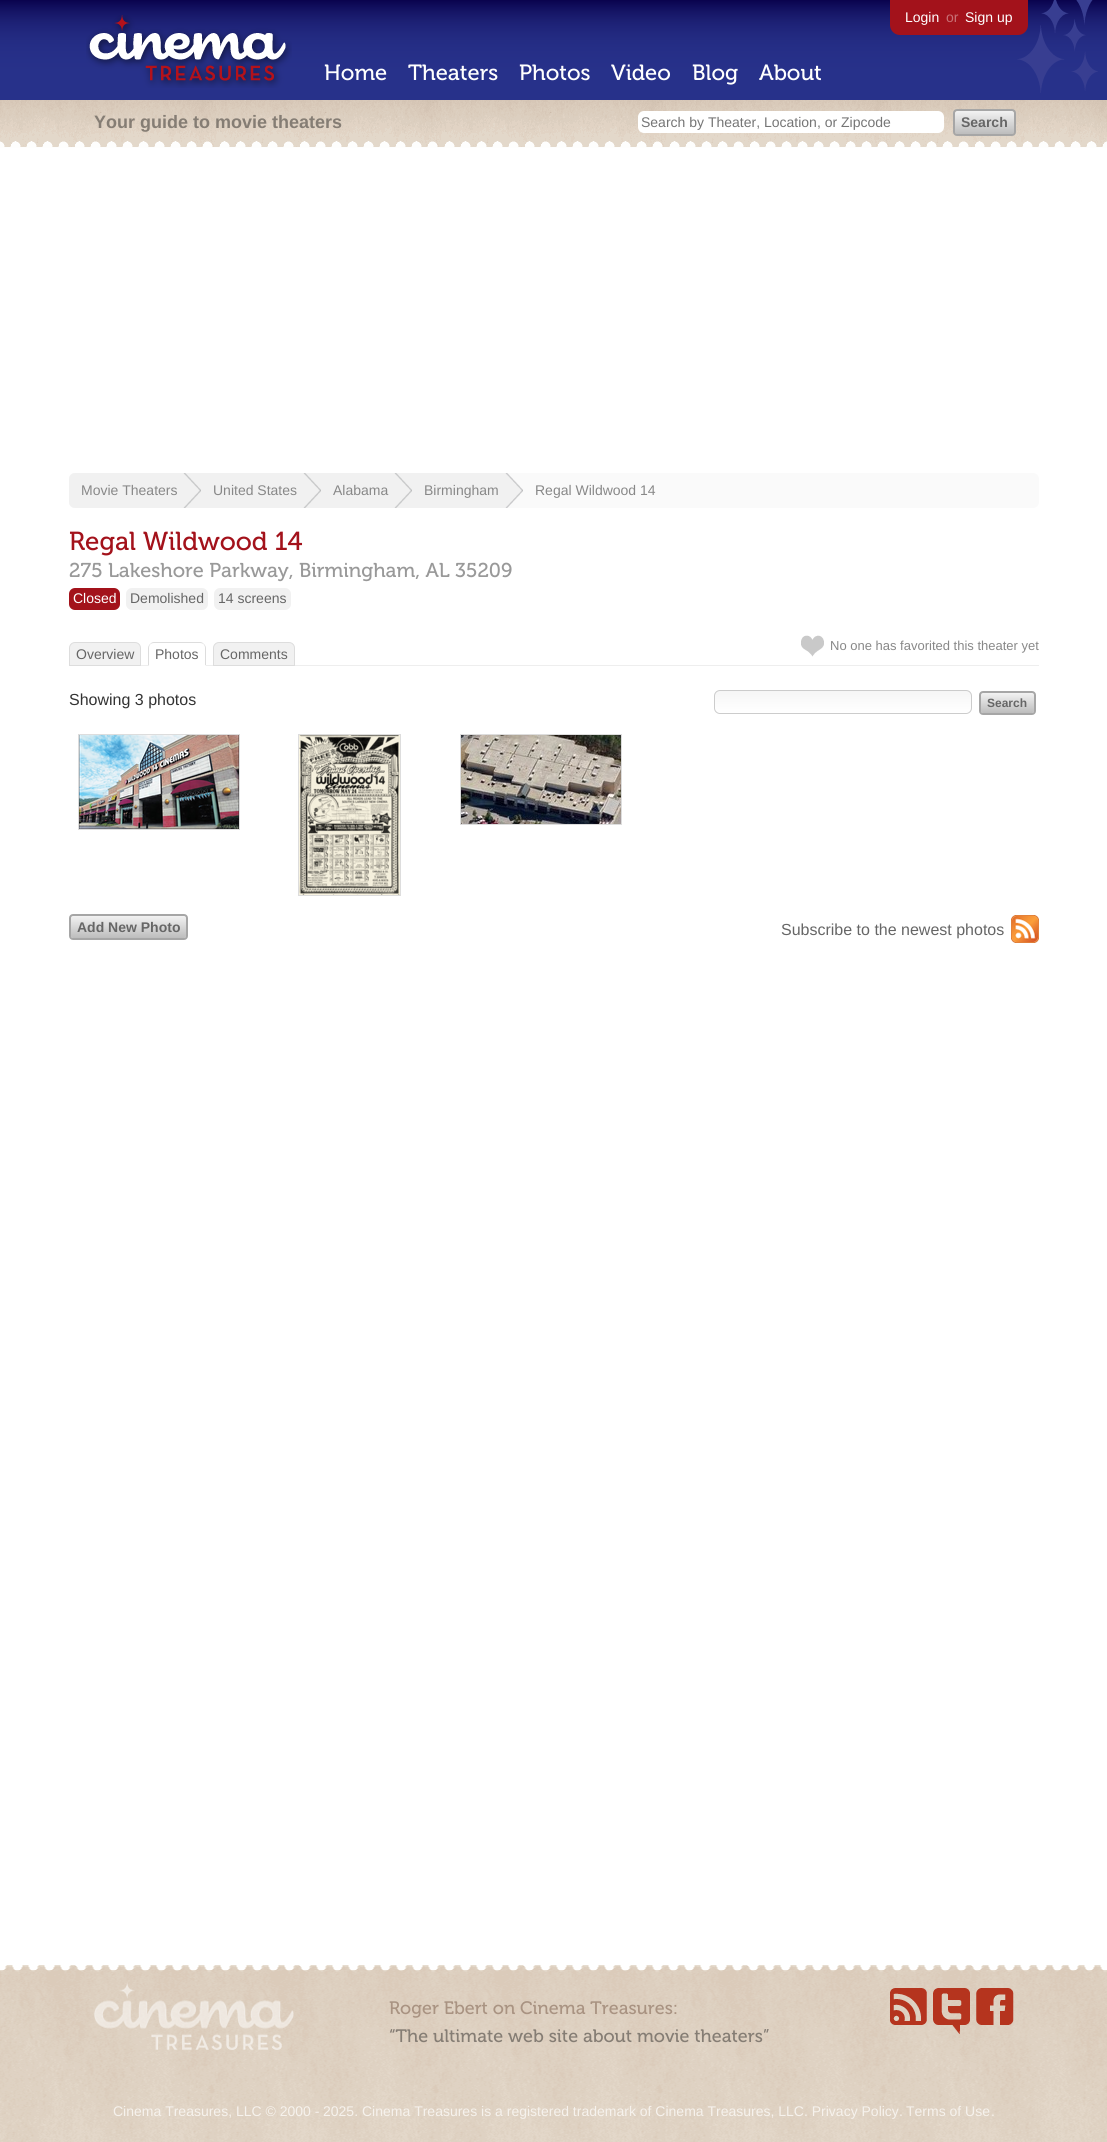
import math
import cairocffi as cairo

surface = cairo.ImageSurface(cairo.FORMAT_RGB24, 1107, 2142)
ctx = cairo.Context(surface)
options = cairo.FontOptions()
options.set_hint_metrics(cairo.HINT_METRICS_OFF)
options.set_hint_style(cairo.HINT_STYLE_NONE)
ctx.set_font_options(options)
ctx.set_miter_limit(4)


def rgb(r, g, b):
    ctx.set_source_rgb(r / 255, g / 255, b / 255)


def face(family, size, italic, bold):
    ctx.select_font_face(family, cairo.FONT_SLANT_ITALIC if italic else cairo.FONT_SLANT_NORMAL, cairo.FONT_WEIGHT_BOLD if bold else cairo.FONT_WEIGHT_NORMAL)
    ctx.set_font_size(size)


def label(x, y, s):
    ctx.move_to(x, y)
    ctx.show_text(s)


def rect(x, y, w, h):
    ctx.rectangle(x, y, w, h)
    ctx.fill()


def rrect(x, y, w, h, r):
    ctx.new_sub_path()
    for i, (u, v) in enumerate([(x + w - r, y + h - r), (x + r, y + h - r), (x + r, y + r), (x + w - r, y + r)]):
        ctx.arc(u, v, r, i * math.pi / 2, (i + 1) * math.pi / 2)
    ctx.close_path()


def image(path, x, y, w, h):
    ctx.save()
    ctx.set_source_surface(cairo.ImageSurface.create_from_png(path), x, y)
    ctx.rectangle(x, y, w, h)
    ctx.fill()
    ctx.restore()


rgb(255, 255, 255)
ctx.paint()
image('image0.png', 0, 0, 1107, 100)
image('image1.png', 86, 15, 206, 73)
face('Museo', 22, 0, 0)
rgb(255, 255, 255)
label(324, 80, 'Home')
label(408, 80, 'Theaters')
label(519, 80, 'Photos')
label(611, 80, 'Video')
label(692, 80, 'Blog')
label(759, 80, 'About')
image('image2.png', 1017, 0, 81, 93)
rgb(163, 18, 27)
ctx.new_path()
ctx.move_to(890, 0)
ctx.line_to(1028, 0)
ctx.line_to(1028, 25)
ctx.curve_to(1028, 30.5, 1023.5, 35, 1018, 35)
ctx.line_to(900, 35)
ctx.curve_to(894.5, 35, 890, 30.5, 890, 25)
ctx.close_path()
ctx.fill()
face('Liberation Sans', 14, 0, 0)
rgb(255, 255, 255)
label(905, 22, 'Login')
rgb(200, 113, 118)
label(946, 22, 'or')
rgb(255, 255, 255)
label(965, 22, 'Sign up')
image('image3.png', 0, 100, 1107, 48)
face('Liberation Sans', 18, 0, 1)
rgb(133, 125, 116)
label(94, 128, 'Your guide to movie theaters')
rgb(255, 255, 255)
rrect(638, 111, 306, 22, 6)
ctx.fill()
face('Liberation Sans', 14, 0, 0)
rgb(117, 117, 117)
label(641, 127, 'Search by Theater, Location, or Zipcode')
gradient = cairo.LinearGradient(985, 111, 985, 134)
gradient.add_color_stop_rgba(0, 0.949, 0.949, 0.949, 1)
gradient.add_color_stop_rgba(1, 0.741, 0.741, 0.741, 1)
ctx.set_source(gradient)
rrect(955, 111, 59, 23, 2)
ctx.fill()
rrect(954, 110, 61, 25, 3)
rgb(166, 166, 166)
ctx.stroke()
face('Liberation Sans', 14, 0, 1)
rgb(102, 102, 102)
label(961, 127, 'Search')
rgb(250, 250, 250)
rrect(69, 473, 970, 35, 6)
ctx.fill()
rgb(241, 241, 241)
ctx.new_path()
ctx.move_to(75, 473)
ctx.line_to(201, 473)
ctx.line_to(201, 508)
ctx.line_to(75, 508)
ctx.curve_to(71.5, 508, 69, 505.5, 69, 502)
ctx.line_to(69, 479)
ctx.curve_to(69, 475.5, 71.5, 473, 75, 473)
ctx.close_path()
ctx.fill()
image('image4.png', 183, 473, 18, 35)
face('Liberation Sans', 14, 0, 0)
rgb(136, 136, 136)
label(81, 495, 'Movie Theaters')
rgb(241, 241, 241)
rect(201, 473, 322, 35)
image('image4.png', 303, 473, 18, 35)
rgb(136, 136, 136)
label(213, 495, 'United States')
image('image4.png', 394, 473, 18, 35)
label(333, 495, 'Alabama')
image('image5.png', 505, 473, 18, 35)
label(424, 495, 'Birmingham')
label(535, 495, 'Regal Wildwood 14')
face('Museo', 26, 0, 0)
rgb(163, 18, 27)
label(69, 550, 'Regal Wildwood 14')
face('Museo', 20, 0, 0)
rgb(153, 153, 153)
label(69, 577, '275 Lakeshore Parkway, Birmingham, AL 35209')
rgb(163, 18, 27)
rrect(69, 588, 51, 22, 6)
ctx.fill()
face('Liberation Sans', 14, 0, 0)
rgb(255, 255, 255)
label(73, 603, 'Closed')
rgb(241, 241, 241)
rrect(126, 588, 82, 22, 6)
ctx.fill()
rgb(102, 102, 102)
label(130, 603, 'Demolished')
rgb(241, 241, 241)
rrect(214, 588, 77, 22, 6)
ctx.fill()
rgb(102, 102, 102)
label(218, 603, '14 screens')
rgb(238, 238, 238)
rect(141, 665, 898, 1)
rgb(241, 241, 241)
ctx.new_path()
ctx.move_to(75, 642.5)
ctx.line_to(135, 642.5)
ctx.curve_to(138, 642.5, 140.5, 645, 140.5, 648)
ctx.line_to(140.5, 665.5)
ctx.line_to(69.5, 665.5)
ctx.line_to(69.5, 648)
ctx.curve_to(69.5, 645, 72, 642.5, 75, 642.5)
ctx.close_path()
ctx.fill_preserve()
rgb(221, 221, 221)
ctx.set_line_width(1)
ctx.stroke()
rgb(102, 102, 102)
label(76, 659, 'Overview')
rgb(255, 255, 255)
ctx.new_path()
ctx.move_to(154, 642)
ctx.line_to(200, 642)
ctx.curve_to(203.5, 642, 206, 644.5, 206, 648)
ctx.line_to(206, 666)
ctx.line_to(148, 666)
ctx.line_to(148, 648)
ctx.curve_to(148, 644.5, 150.5, 642, 154, 642)
ctx.close_path()
ctx.fill()
rgb(221, 221, 221)
ctx.new_path()
ctx.move_to(154, 642)
ctx.curve_to(152, 642, 151, 643, 150, 644)
ctx.curve_to(151, 644, 152, 643, 154, 643)
ctx.line_to(200, 643)
ctx.curve_to(202, 643, 203, 644, 204, 644)
ctx.curve_to(203, 643, 202, 642, 200, 642)
ctx.close_path()
ctx.move_to(206, 666)
ctx.line_to(206, 648)
ctx.curve_to(206, 646.5, 205, 645, 204, 644)
ctx.line_to(203.5, 644.5)
ctx.curve_to(204.5, 645, 205, 646.5, 205, 648)
ctx.line_to(205, 665)
ctx.close_path()
ctx.fill()
rgb(102, 102, 102)
label(155, 659, 'Photos')
rgb(255, 255, 255)
ctx.new_path()
ctx.move_to(206, 666)
ctx.line_to(205, 665)
ctx.line_to(149, 665)
ctx.line_to(148, 666)
ctx.close_path()
ctx.fill()
rgb(221, 221, 221)
ctx.new_path()
ctx.move_to(148, 666)
ctx.line_to(149, 665)
ctx.line_to(149, 648)
ctx.curve_to(149, 646.5, 149.5, 645, 150.5, 644.5)
ctx.line_to(150, 644)
ctx.curve_to(149, 645, 148, 646.5, 148, 648)
ctx.close_path()
ctx.fill()
rgb(241, 241, 241)
ctx.new_path()
ctx.move_to(219, 642.5)
ctx.line_to(289, 642.5)
ctx.curve_to(292, 642.5, 294.5, 645, 294.5, 648)
ctx.line_to(294.5, 665.5)
ctx.line_to(213.5, 665.5)
ctx.line_to(213.5, 648)
ctx.curve_to(213.5, 645, 216, 642.5, 219, 642.5)
ctx.close_path()
ctx.fill_preserve()
rgb(221, 221, 221)
ctx.stroke()
rgb(102, 102, 102)
label(220, 659, 'Comments')
image('image6.png', 801, 635, 23, 22)
face('Liberation Sans', 13, 0, 0)
rgb(136, 136, 136)
label(830, 650, 'No one has favorited this theater yet')
face('Liberation Sans', 16, 0, 0)
rgb(51, 51, 51)
label(69, 705, 'Showing 3 photos')
ctx.save()
rrect(714, 690, 258, 24, 6)
ctx.clip()
gradient = cairo.LinearGradient(843, 691, 843, 713)
gradient.add_color_stop_rgba(0, 0.965, 0.965, 0.965, 1)
gradient.add_color_stop_rgba(1, 1, 1, 1, 1)
ctx.set_source(gradient)
rect(714, 691, 258, 22)
ctx.restore()
rrect(714.5, 690.5, 257, 23, 5.5)
rgb(204, 204, 204)
ctx.stroke()
gradient = cairo.LinearGradient(1008, 693, 1008, 713)
gradient.add_color_stop_rgba(0, 0.949, 0.949, 0.949, 1)
gradient.add_color_stop_rgba(1, 0.741, 0.741, 0.741, 1)
ctx.set_source(gradient)
rrect(981, 693, 53, 20, 2)
ctx.fill()
rrect(980, 692, 55, 22, 3)
rgb(166, 166, 166)
ctx.set_line_width(2)
ctx.stroke()
face('Liberation Sans', 12, 0, 1)
rgb(102, 102, 102)
label(987, 707, 'Search')
ctx.rectangle(78.5, 734.5, 161, 95)
rgb(221, 221, 221)
ctx.set_line_width(1)
ctx.stroke()
image('image7.png', 79, 735, 160, 94)
ctx.rectangle(298.5, 734.5, 102, 161)
ctx.stroke()
image('image8.png', 299, 735, 101, 160)
ctx.rectangle(460.5, 734.5, 161, 90)
ctx.stroke()
image('image9.png', 461, 735, 160, 89)
gradient = cairo.LinearGradient(129, 916, 129, 938)
gradient.add_color_stop_rgba(0, 0.949, 0.949, 0.949, 1)
gradient.add_color_stop_rgba(1, 0.741, 0.741, 0.741, 1)
ctx.set_source(gradient)
rrect(71, 916, 115, 22, 2)
ctx.fill()
rrect(70, 915, 117, 24, 3)
rgb(166, 166, 166)
ctx.set_line_width(2)
ctx.stroke()
face('Liberation Sans', 14, 0, 1)
rgb(102, 102, 102)
label(77, 932, 'Add New Photo')
face('Liberation Sans', 16, 0, 0)
label(781, 935, 'Subscribe to the newest photos')
image('image10.png', 1011, 915, 28, 28)
image('image11.png', 0, 1965, 1107, 177)
image('image12.png', 94, 1982, 200, 68)
face('Museo', 18, 0, 0)
rgb(169, 147, 130)
label(389, 2014, 'Roger Ebert on Cinema Treasures:')
rgb(133, 125, 116)
label(389, 2042, '“The ultimate web site about movie theaters”')
image('image13.png', 890, 1988, 37, 37)
image('image14.png', 933, 1988, 37, 46)
image('image15.png', 976, 1988, 38, 37)
face('Liberation Sans', 14, 0, 0)
rgb(246, 242, 237)
label(113, 2116, 'Cinema Treasures, LLC © 2000 -')
label(323, 2116, '2025.')
label(362, 2116, 'Cinema Treasures is a registered trademark of Cinema Treasures, LLC. Privacy Policy')
label(899, 2116, '.')
label(906, 2116, 'Terms of Use')
label(991, 2116, '.')
surface.write_to_png('render.png')
